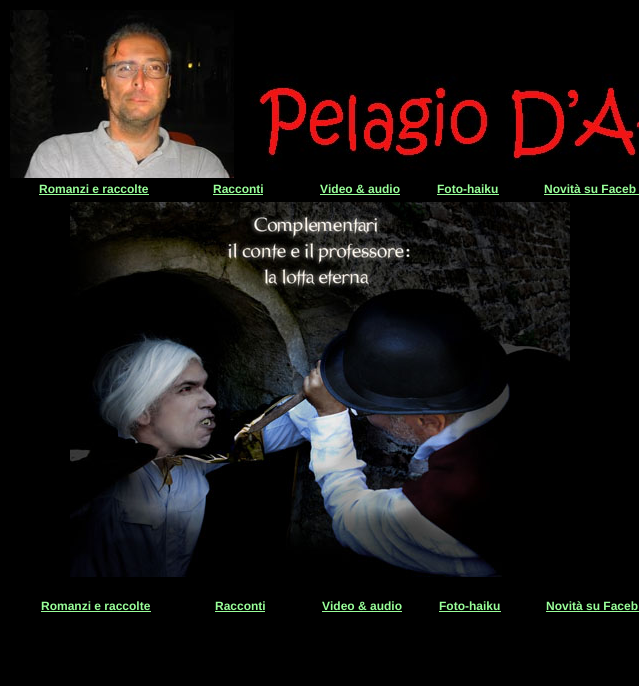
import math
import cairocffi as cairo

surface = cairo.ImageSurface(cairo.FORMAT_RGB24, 639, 686)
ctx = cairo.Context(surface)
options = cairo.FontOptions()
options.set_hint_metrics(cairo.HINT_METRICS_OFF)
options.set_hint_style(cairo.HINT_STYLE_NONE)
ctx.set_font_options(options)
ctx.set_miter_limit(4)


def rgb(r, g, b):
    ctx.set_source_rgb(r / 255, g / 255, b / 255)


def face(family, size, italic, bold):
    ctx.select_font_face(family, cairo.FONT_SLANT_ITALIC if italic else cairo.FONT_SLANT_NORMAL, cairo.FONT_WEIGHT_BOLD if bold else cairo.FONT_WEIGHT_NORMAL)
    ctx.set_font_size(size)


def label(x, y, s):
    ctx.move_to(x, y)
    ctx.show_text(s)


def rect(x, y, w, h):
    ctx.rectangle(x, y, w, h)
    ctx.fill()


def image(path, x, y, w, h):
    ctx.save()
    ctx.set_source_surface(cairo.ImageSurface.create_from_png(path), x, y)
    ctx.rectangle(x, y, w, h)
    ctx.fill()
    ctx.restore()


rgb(0, 0, 0)
ctx.paint()
image('image0.png', 10, 10, 629, 168)
face('Liberation Sans', 12, 0, 1)
rgb(153, 255, 153)
label(39, 193, 'Romanzi e raccolte')
rect(39, 194, 110, 1)
label(213, 193, 'Racconti')
rect(213, 194, 50, 1)
label(320, 193, 'Video & audio')
rect(320, 194, 80, 1)
label(437, 193, 'Foto-haiku')
rect(437, 194, 62, 1)
label(544, 193, 'Novità su Faceb')
rect(544, 194, 95, 1)
image('image1.png', 70, 202, 500, 375)
label(41, 610, 'Romanzi e raccolte')
rect(41, 611, 110, 1)
label(215, 610, 'Racconti')
rect(215, 611, 50, 1)
label(322, 610, 'Video & audio')
rect(322, 611, 80, 1)
label(439, 610, 'Foto-haiku')
rect(439, 611, 62, 1)
label(546, 610, 'Novità su Faceb')
rect(546, 611, 93, 1)
surface.write_to_png('render.png')
